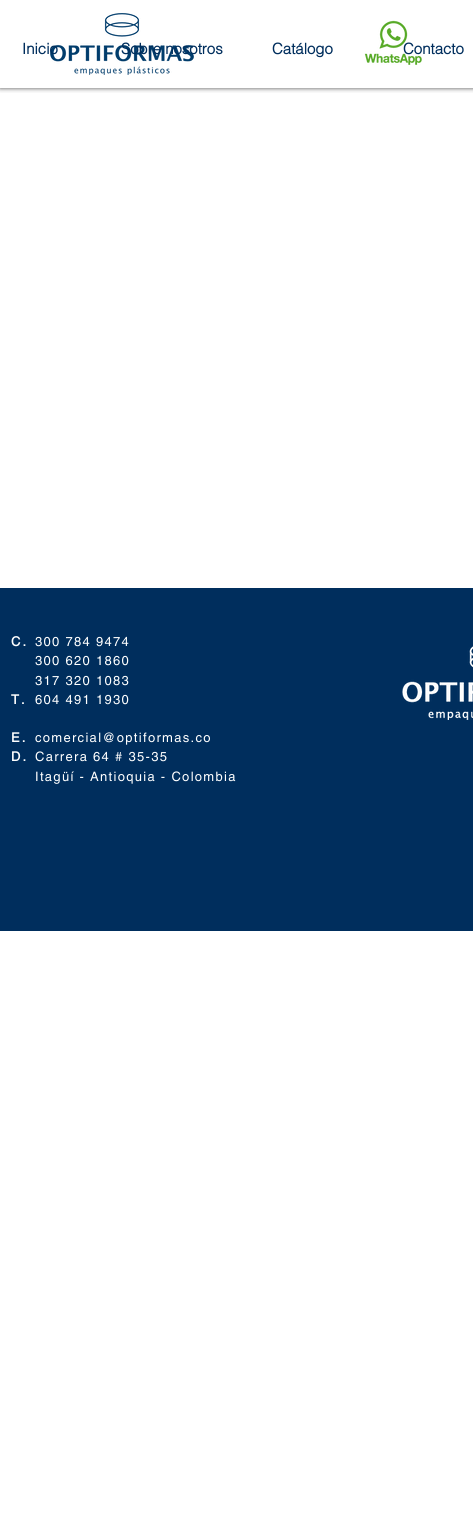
import math
import cairocffi as cairo

surface = cairo.ImageSurface(cairo.FORMAT_RGB24, 473, 1523)
ctx = cairo.Context(surface)
options = cairo.FontOptions()
options.set_hint_metrics(cairo.HINT_METRICS_OFF)
options.set_hint_style(cairo.HINT_STYLE_NONE)
ctx.set_font_options(options)
ctx.set_miter_limit(4)


def rgb(r, g, b):
    ctx.set_source_rgb(r / 255, g / 255, b / 255)


def face(family, size, italic, bold):
    ctx.select_font_face(family, cairo.FONT_SLANT_ITALIC if italic else cairo.FONT_SLANT_NORMAL, cairo.FONT_WEIGHT_BOLD if bold else cairo.FONT_WEIGHT_NORMAL)
    ctx.set_font_size(size)


def label(x, y, s):
    ctx.move_to(x, y)
    ctx.show_text(s)


def tracked(x, y, s, letter, word):
    ctx.move_to(x, y)
    for ch in s:
        ctx.show_text(ch)
        ctx.rel_move_to(letter + word * (ch == ' '), 0)


def rect(x, y, w, h):
    ctx.rectangle(x, y, w, h)
    ctx.fill()


def rrect(x, y, w, h, r):
    ctx.new_sub_path()
    for i, (u, v) in enumerate([(x + w - r, y + h - r), (x + r, y + h - r), (x + r, y + r), (x + w - r, y + r)]):
        ctx.arc(u, v, r, i * math.pi / 2, (i + 1) * math.pi / 2)
    ctx.close_path()


def soft_shadow(x, y, w, h, r, blur, alpha):
    ctx.push_group_with_content(cairo.CONTENT_ALPHA)
    ctx.set_operator(cairo.OPERATOR_SOURCE)
    for i in range(15, -16, -2):
        e = blur * i / 6
        if min(w, h) + 2 * e > 0:
            ctx.set_source_rgba(0, 0, 0, alpha * math.erfc((i - 1) / 8.5) / 2)
            rrect(x - e, y - e, w + 2 * e, h + 2 * e, max(0, min(r + e + blur * .6, min(w, h) / 2 + e)))
            ctx.fill()
    ctx.mask(ctx.pop_group())


def image(path, x, y, w, h):
    ctx.save()
    ctx.set_source_surface(cairo.ImageSurface.create_from_png(path), x, y)
    ctx.rectangle(x, y, w, h)
    ctx.fill()
    ctx.restore()


rgb(255, 255, 255)
ctx.paint()
ctx.save()
ctx.rectangle(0, 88, 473, 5)
ctx.clip()
rgb(0, 0, 0)
soft_shadow(0, 0, 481, 88, 0, 2.5, 0.7)
ctx.restore()
image('image0.png', 50, 13, 144, 62)
image('image1.png', 364, 20, 58, 45)
face('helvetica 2', 15, 0, 1)
rgb(0, 46, 93)
label(22, 54, 'Inicio')
label(121, 54, 'Sobre nosotros')
label(272, 54, 'Catálogo')
label(403, 54, 'Contacto')
rect(0, 588, 473, 343)
face('helvetica', 13, 0, 1)
rgb(255, 255, 255)
tracked(11, 646, 'C.', 2, 0)
tracked(11, 704, 'T.', 2, 0)
tracked(11, 742, 'E.', 2, 0)
tracked(11, 761, 'D.', 2, 0)
face('helvetica', 13, 0, 0)
tracked(35, 646, '300 784 9474', 1.3, 0)
tracked(35, 665, '300 620 1860', 1.3, 0)
tracked(35, 685, '317 320 1083', 1.3, 0)
tracked(35, 704, '604 491 1930', 1.3, 0)
tracked(35, 742, 'comercial@optiformas.co', 1.3, 0)
tracked(35, 761, 'Carrera 64 # 35-35', 1.3, 0)
tracked(35, 781, 'Itagüí - Antioquia - Colombia', 1.3, 0)
image('image2.png', 402, 646, 71, 74)
surface.write_to_png('render.png')
